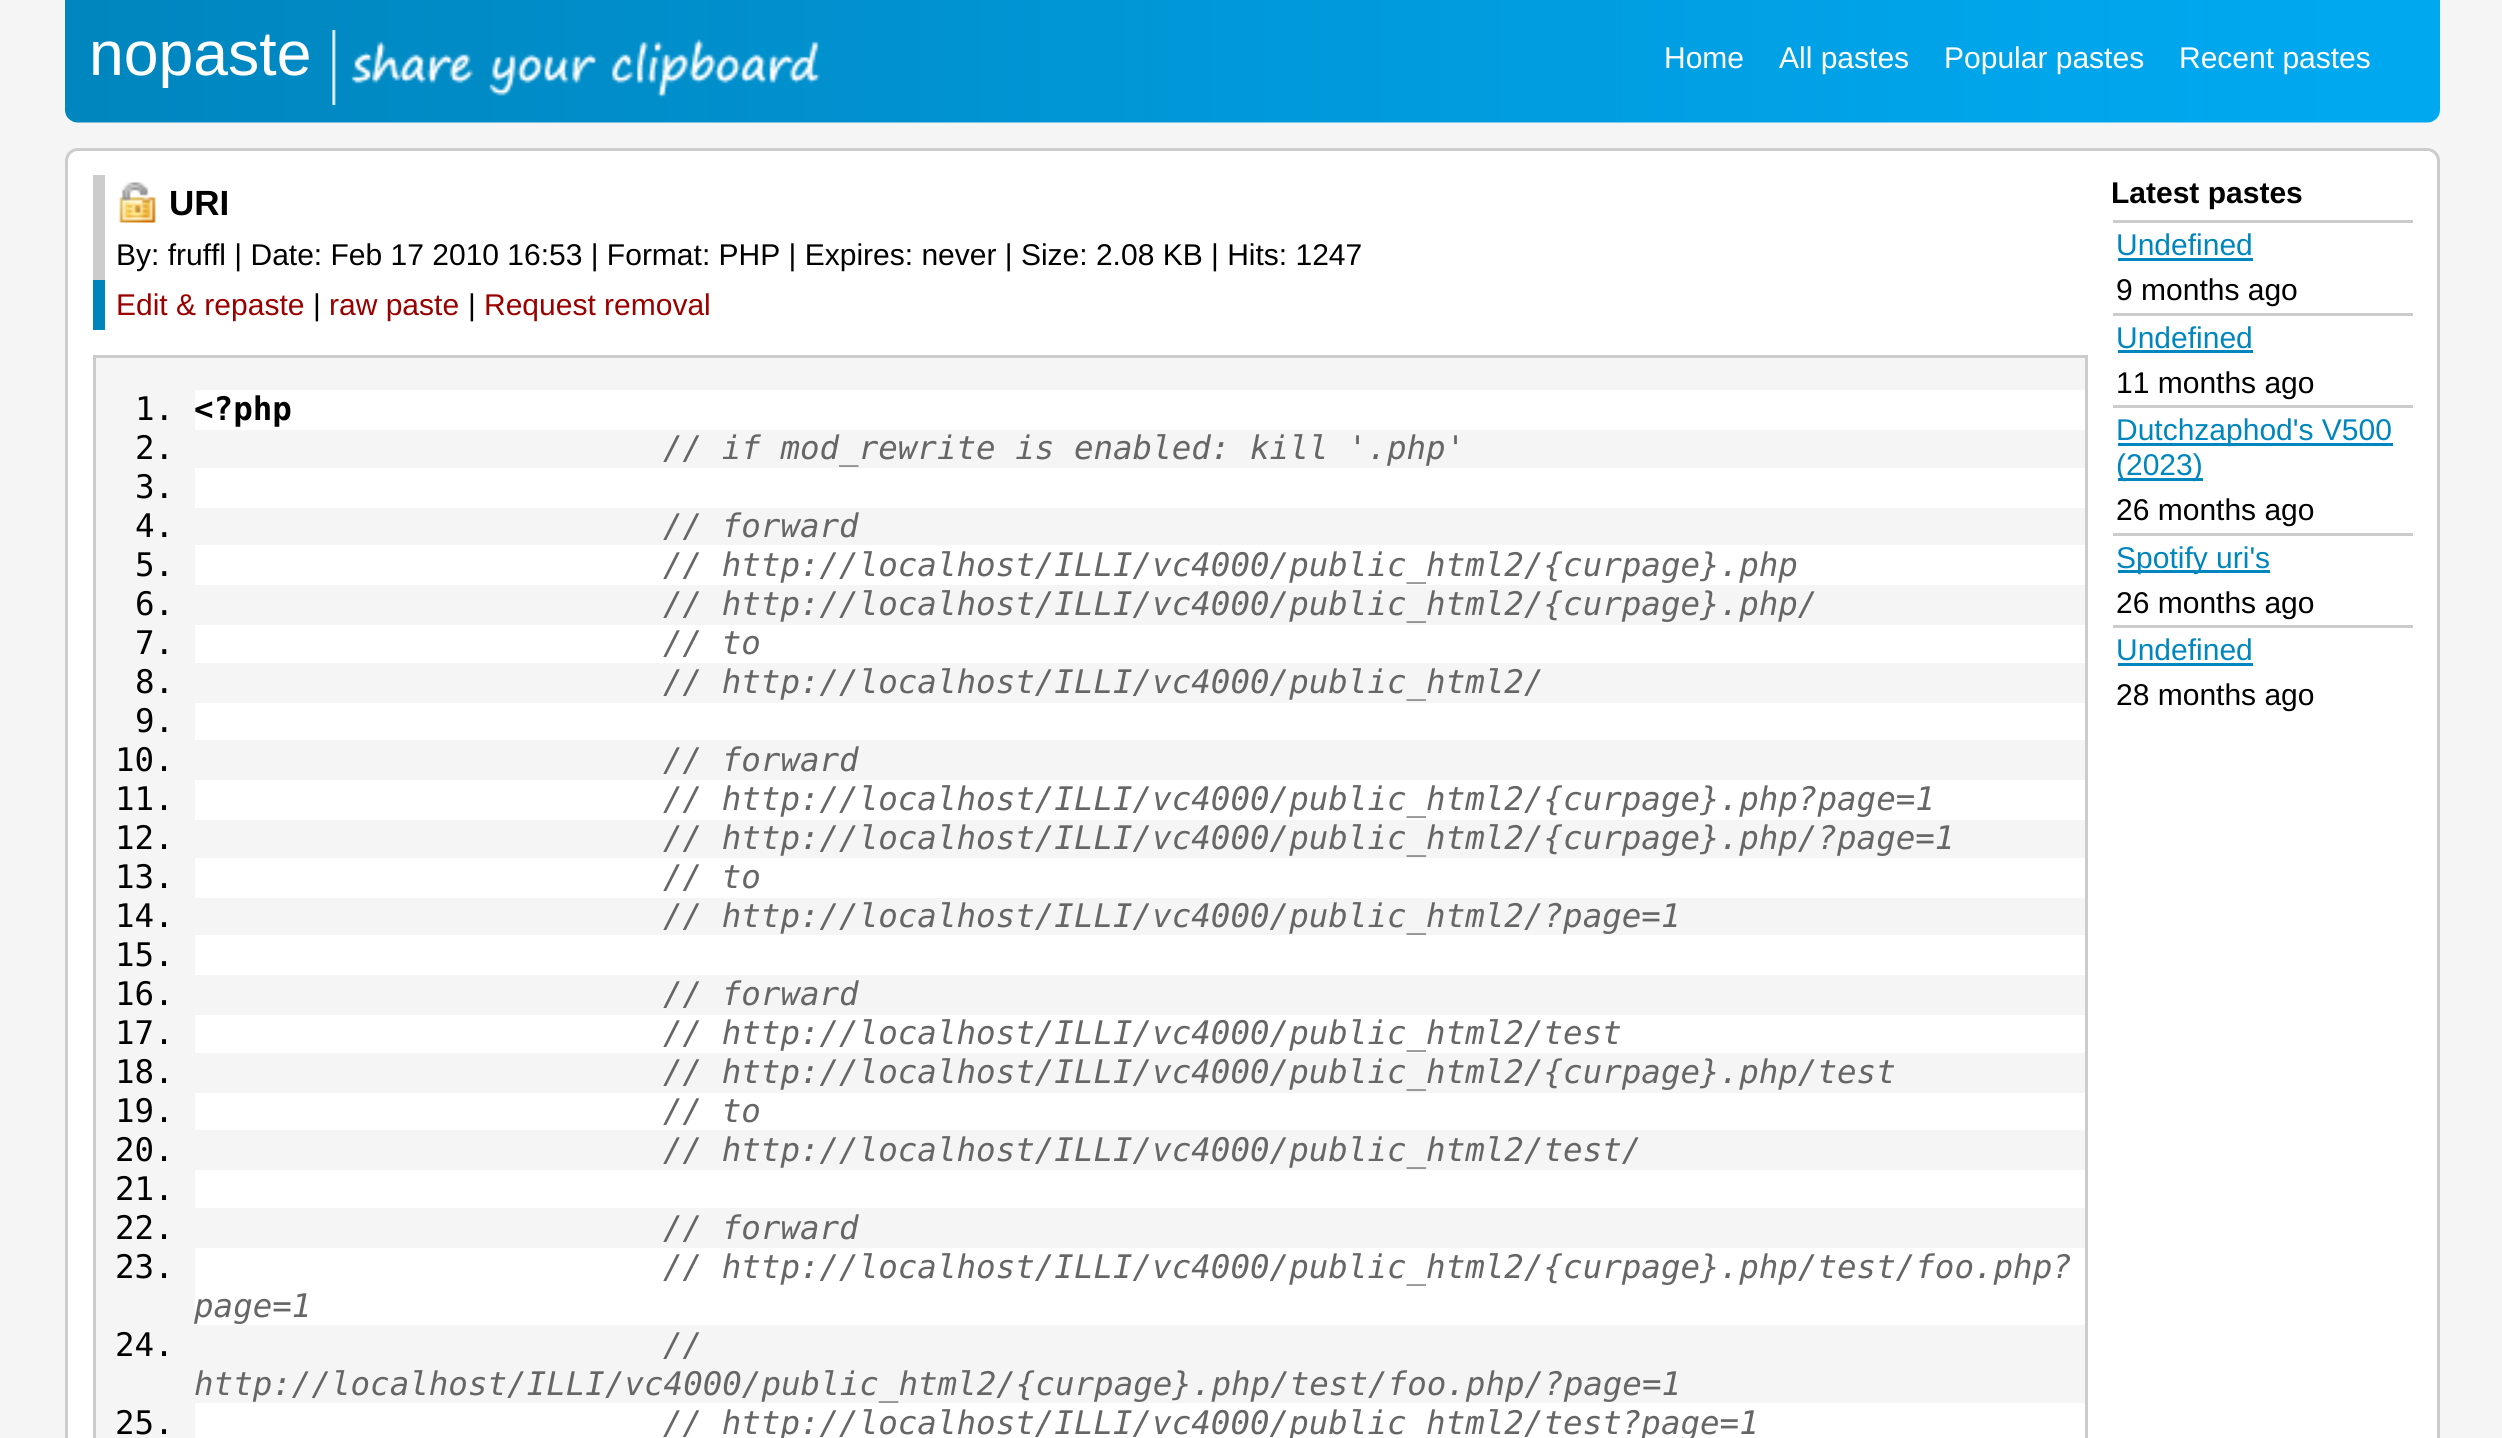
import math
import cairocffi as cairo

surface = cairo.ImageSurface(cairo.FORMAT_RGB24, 2502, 1438)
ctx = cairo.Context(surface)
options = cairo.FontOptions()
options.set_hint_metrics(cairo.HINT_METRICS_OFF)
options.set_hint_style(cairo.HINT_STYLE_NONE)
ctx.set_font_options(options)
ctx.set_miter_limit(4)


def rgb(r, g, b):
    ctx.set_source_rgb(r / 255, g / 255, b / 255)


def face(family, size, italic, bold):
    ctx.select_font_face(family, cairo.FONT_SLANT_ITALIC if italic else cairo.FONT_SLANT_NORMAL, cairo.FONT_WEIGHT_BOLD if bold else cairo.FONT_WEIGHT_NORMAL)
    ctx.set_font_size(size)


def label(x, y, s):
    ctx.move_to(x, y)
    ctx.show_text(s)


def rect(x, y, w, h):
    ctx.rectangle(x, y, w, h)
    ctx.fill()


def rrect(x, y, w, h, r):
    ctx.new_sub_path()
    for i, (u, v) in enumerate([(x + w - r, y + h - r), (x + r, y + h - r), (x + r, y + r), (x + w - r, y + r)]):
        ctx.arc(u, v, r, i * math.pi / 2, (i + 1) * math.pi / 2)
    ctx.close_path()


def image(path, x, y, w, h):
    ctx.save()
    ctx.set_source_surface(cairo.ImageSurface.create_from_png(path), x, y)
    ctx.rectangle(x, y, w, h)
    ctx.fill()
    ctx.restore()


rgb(245, 245, 245)
ctx.paint()
image('image0.png', 65, 0, 2375, 123)
image('image1.png', 332, 30, 488, 75)
face('Liberation Sans', 62.5, 0, 0)
rgb(255, 255, 255)
label(89, 75, 'nopaste')
face('Liberation Sans', 30, 0, 0)
label(1664, 68, 'Home')
label(1779, 68, 'All pastes')
label(1944, 68, 'Popular pastes')
label(2179, 68, 'Recent pastes')
rrect(66.5, 149.5, 2372, 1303, 11.5)
ctx.fill_preserve()
rgb(204, 204, 204)
ctx.set_line_width(3)
ctx.stroke()
rect(93, 175, 12, 105)
image('image2.png', 119, 182, 37, 41)
face('Liberation Sans', 35, 0, 1)
rgb(0, 0, 0)
label(169, 215, 'URI')
face('Liberation Sans', 30, 0, 0)
label(116, 265, 'By: fruffl | Date: Feb 17 2010 16:53 | Format: PHP | Expires: never | Size: 2.08 KB | Hits: 1247')
rgb(0, 132, 188)
rect(93, 280, 12, 50)
rgb(153, 0, 0)
label(116, 315, 'Edit & repaste')
rgb(0, 0, 0)
label(313, 315, '|')
rgb(153, 0, 0)
label(329, 315, 'raw paste')
rgb(0, 0, 0)
label(468, 315, '|')
rgb(153, 0, 0)
label(484, 315, 'Request removal')
rgb(245, 245, 245)
ctx.rectangle(94.5, 356.5, 1992, 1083)
ctx.fill_preserve()
rgb(204, 204, 204)
ctx.stroke()
rgb(255, 255, 255)
rect(195, 390, 1890, 40)
face('DejaVu Sans Mono', 32.5, 0, 0)
rgb(0, 0, 0)
label(135, 420, '1.')
face('DejaVu Sans Mono', 32.5, 0, 1)
label(194, 420, '<?php')
face('DejaVu Sans Mono', 32.5, 0, 0)
label(135, 459, '2.')
face('DejaVu Sans Mono', 32.5, 1, 0)
rgb(102, 102, 102)
label(663, 459, '// if mod_rewrite is enabled: kill \'.php\'')
rgb(255, 255, 255)
rect(195, 468, 1890, 40)
face('DejaVu Sans Mono', 32.5, 0, 0)
rgb(0, 0, 0)
label(135, 498, '3.')
label(135, 537, '4.')
face('DejaVu Sans Mono', 32.5, 1, 0)
rgb(102, 102, 102)
label(663, 537, '// forward')
rgb(255, 255, 255)
rect(195, 545, 1890, 40)
face('DejaVu Sans Mono', 32.5, 0, 0)
rgb(0, 0, 0)
label(135, 576, '5.')
face('DejaVu Sans Mono', 32.5, 1, 0)
rgb(102, 102, 102)
label(663, 576, '// http://localhost/ILLI/vc4000/public_html2/{curpage}.php')
face('DejaVu Sans Mono', 32.5, 0, 0)
rgb(0, 0, 0)
label(135, 615, '6.')
face('DejaVu Sans Mono', 32.5, 1, 0)
rgb(102, 102, 102)
label(663, 615, '// http://localhost/ILLI/vc4000/public_html2/{curpage}.php/')
rgb(255, 255, 255)
rect(195, 625, 1890, 38)
face('DejaVu Sans Mono', 32.5, 0, 0)
rgb(0, 0, 0)
label(135, 654, '7.')
face('DejaVu Sans Mono', 32.5, 1, 0)
rgb(102, 102, 102)
label(663, 654, '// to')
face('DejaVu Sans Mono', 32.5, 0, 0)
rgb(0, 0, 0)
label(135, 693, '8.')
face('DejaVu Sans Mono', 32.5, 1, 0)
rgb(102, 102, 102)
label(663, 693, '// http://localhost/ILLI/vc4000/public_html2/')
rgb(255, 255, 255)
rect(195, 703, 1890, 37)
face('DejaVu Sans Mono', 32.5, 0, 0)
rgb(0, 0, 0)
label(135, 732, '9.')
label(115, 771, '10.')
face('DejaVu Sans Mono', 32.5, 1, 0)
rgb(102, 102, 102)
label(663, 771, '// forward')
rgb(255, 255, 255)
rect(195, 780, 1890, 40)
face('DejaVu Sans Mono', 32.5, 0, 0)
rgb(0, 0, 0)
label(115, 810, '11.')
face('DejaVu Sans Mono', 32.5, 1, 0)
rgb(102, 102, 102)
label(663, 810, '// http://localhost/ILLI/vc4000/public_html2/{curpage}.php?page=1')
face('DejaVu Sans Mono', 32.5, 0, 0)
rgb(0, 0, 0)
label(115, 849, '12.')
face('DejaVu Sans Mono', 32.5, 1, 0)
rgb(102, 102, 102)
label(663, 849, '// http://localhost/ILLI/vc4000/public_html2/{curpage}.php/?page=1')
rgb(255, 255, 255)
rect(195, 858, 1890, 40)
face('DejaVu Sans Mono', 32.5, 0, 0)
rgb(0, 0, 0)
label(115, 888, '13.')
face('DejaVu Sans Mono', 32.5, 1, 0)
rgb(102, 102, 102)
label(663, 888, '// to')
face('DejaVu Sans Mono', 32.5, 0, 0)
rgb(0, 0, 0)
label(115, 927, '14.')
face('DejaVu Sans Mono', 32.5, 1, 0)
rgb(102, 102, 102)
label(663, 927, '// http://localhost/ILLI/vc4000/public_html2/?page=1')
rgb(255, 255, 255)
rect(195, 935, 1890, 40)
face('DejaVu Sans Mono', 32.5, 0, 0)
rgb(0, 0, 0)
label(115, 966, '15.')
label(115, 1005, '16.')
face('DejaVu Sans Mono', 32.5, 1, 0)
rgb(102, 102, 102)
label(663, 1005, '// forward')
rgb(255, 255, 255)
rect(195, 1015, 1890, 38)
face('DejaVu Sans Mono', 32.5, 0, 0)
rgb(0, 0, 0)
label(115, 1044, '17.')
face('DejaVu Sans Mono', 32.5, 1, 0)
rgb(102, 102, 102)
label(663, 1044, '// http://localhost/ILLI/vc4000/public_html2/test')
face('DejaVu Sans Mono', 32.5, 0, 0)
rgb(0, 0, 0)
label(115, 1083, '18.')
face('DejaVu Sans Mono', 32.5, 1, 0)
rgb(102, 102, 102)
label(663, 1083, '// http://localhost/ILLI/vc4000/public_html2/{curpage}.php/test')
rgb(255, 255, 255)
rect(195, 1093, 1890, 37)
face('DejaVu Sans Mono', 32.5, 0, 0)
rgb(0, 0, 0)
label(115, 1122, '19.')
face('DejaVu Sans Mono', 32.5, 1, 0)
rgb(102, 102, 102)
label(663, 1122, '// to')
face('DejaVu Sans Mono', 32.5, 0, 0)
rgb(0, 0, 0)
label(115, 1161, '20.')
face('DejaVu Sans Mono', 32.5, 1, 0)
rgb(102, 102, 102)
label(663, 1161, '// http://localhost/ILLI/vc4000/public_html2/test/')
rgb(255, 255, 255)
rect(195, 1170, 1890, 38)
face('DejaVu Sans Mono', 32.5, 0, 0)
rgb(0, 0, 0)
label(115, 1200, '21.')
label(115, 1239, '22.')
face('DejaVu Sans Mono', 32.5, 1, 0)
rgb(102, 102, 102)
label(663, 1239, '// forward')
rgb(255, 255, 255)
rect(195, 1248, 1890, 77)
face('DejaVu Sans Mono', 32.5, 0, 0)
rgb(0, 0, 0)
label(115, 1278, '23.')
face('DejaVu Sans Mono', 32.5, 1, 0)
rgb(102, 102, 102)
label(663, 1278, '// http://localhost/ILLI/vc4000/public_html2/{curpage}.php/test/foo.php?')
label(194, 1317, 'page=1')
face('DejaVu Sans Mono', 32.5, 0, 0)
rgb(0, 0, 0)
label(115, 1356, '24.')
face('DejaVu Sans Mono', 32.5, 1, 0)
rgb(102, 102, 102)
label(663, 1356, '//')
label(194, 1395, 'http://localhost/ILLI/vc4000/public_html2/{curpage}.php/test/foo.php/?page=1')
rgb(255, 255, 255)
rect(195, 1403, 1890, 35)
face('DejaVu Sans Mono', 32.5, 0, 0)
rgb(0, 0, 0)
label(115, 1434, '25.')
face('DejaVu Sans Mono', 32.5, 1, 0)
rgb(102, 102, 102)
label(663, 1434, '// http://localhost/ILLI/vc4000/public_html2/test?page=1')
face('Liberation Sans', 30, 0, 1)
rgb(0, 0, 0)
label(2111, 203, 'Latest pastes')
rgb(204, 204, 204)
rect(2113, 220, 300, 3)
face('Liberation Sans', 30, 0, 0)
rgb(0, 134, 190)
label(2116, 255, 'Undefined')
rect(2118, 258, 135, 3)
rgb(0, 0, 0)
label(2116, 300, '9 months ago')
rgb(204, 204, 204)
rect(2113, 313, 300, 3)
rgb(0, 134, 190)
label(2116, 348, 'Undefined')
rect(2118, 350, 135, 3)
rgb(0, 0, 0)
label(2116, 393, '11 months ago')
rgb(204, 204, 204)
rect(2113, 405, 300, 3)
rgb(0, 134, 190)
rect(2118, 443, 275, 3)
label(2116, 440, 'Dutchzaphod\'s V500')
rect(2118, 478, 85, 3)
label(2116, 475, '(2023)')
rgb(0, 0, 0)
label(2116, 520, '26 months ago')
rgb(204, 204, 204)
rect(2113, 533, 300, 3)
rgb(0, 134, 190)
rect(2118, 570, 152, 3)
label(2116, 568, 'Spotify uri\'s')
rgb(0, 0, 0)
label(2116, 613, '26 months ago')
rgb(204, 204, 204)
rect(2113, 625, 300, 3)
rgb(0, 134, 190)
label(2116, 660, 'Undefined')
rect(2118, 663, 135, 3)
rgb(0, 0, 0)
label(2116, 705, '28 months ago')
surface.write_to_png('render.png')
